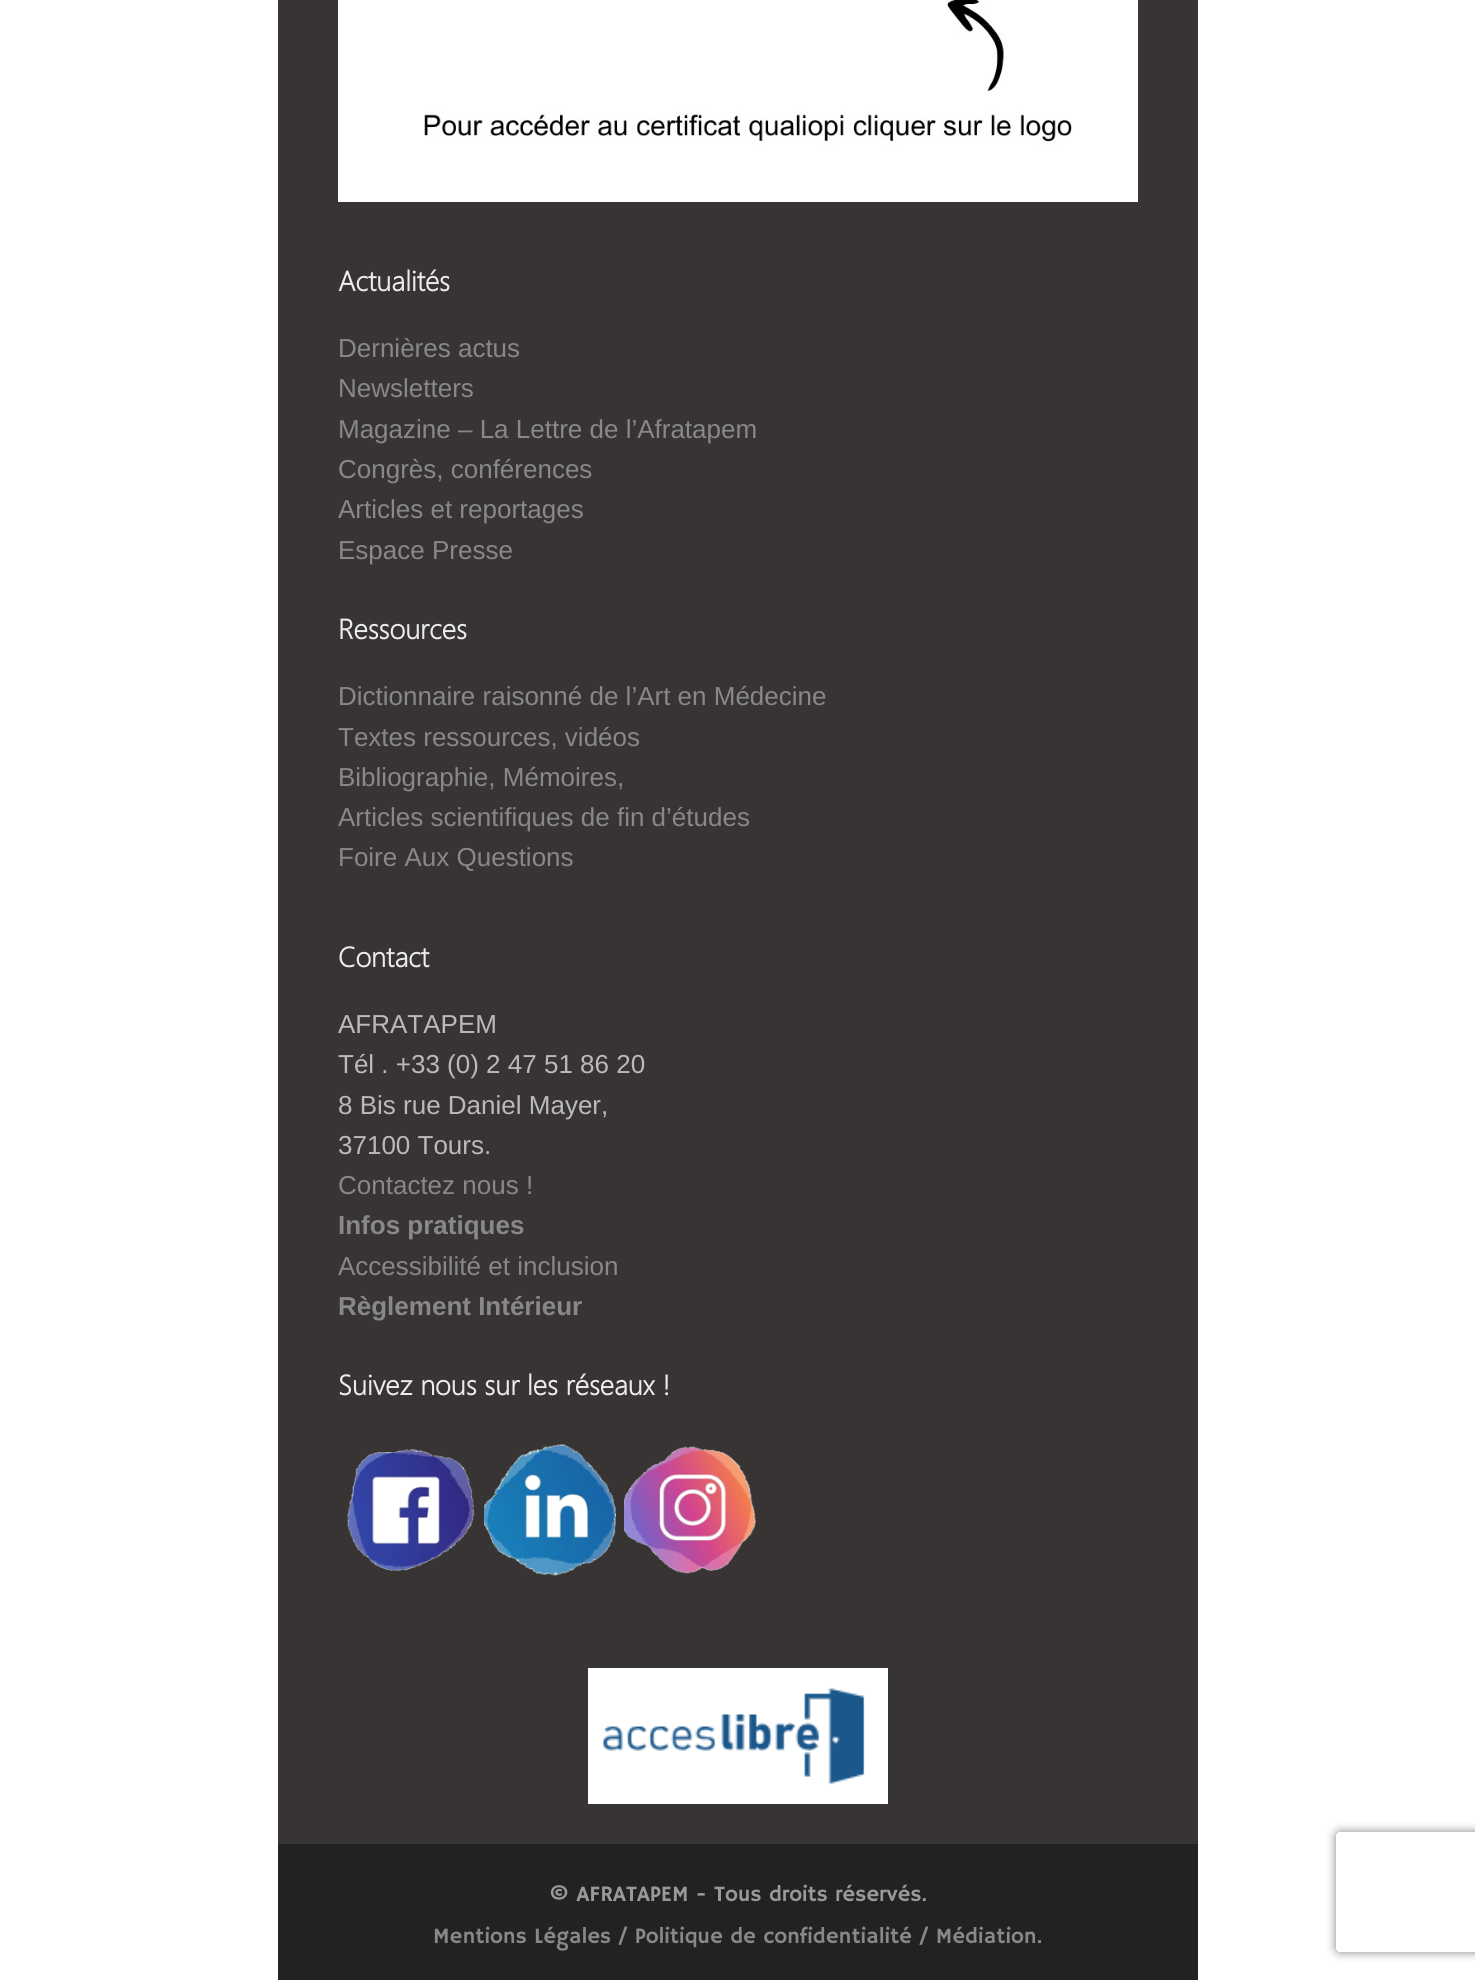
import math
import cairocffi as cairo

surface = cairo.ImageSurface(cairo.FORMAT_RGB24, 1475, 1980)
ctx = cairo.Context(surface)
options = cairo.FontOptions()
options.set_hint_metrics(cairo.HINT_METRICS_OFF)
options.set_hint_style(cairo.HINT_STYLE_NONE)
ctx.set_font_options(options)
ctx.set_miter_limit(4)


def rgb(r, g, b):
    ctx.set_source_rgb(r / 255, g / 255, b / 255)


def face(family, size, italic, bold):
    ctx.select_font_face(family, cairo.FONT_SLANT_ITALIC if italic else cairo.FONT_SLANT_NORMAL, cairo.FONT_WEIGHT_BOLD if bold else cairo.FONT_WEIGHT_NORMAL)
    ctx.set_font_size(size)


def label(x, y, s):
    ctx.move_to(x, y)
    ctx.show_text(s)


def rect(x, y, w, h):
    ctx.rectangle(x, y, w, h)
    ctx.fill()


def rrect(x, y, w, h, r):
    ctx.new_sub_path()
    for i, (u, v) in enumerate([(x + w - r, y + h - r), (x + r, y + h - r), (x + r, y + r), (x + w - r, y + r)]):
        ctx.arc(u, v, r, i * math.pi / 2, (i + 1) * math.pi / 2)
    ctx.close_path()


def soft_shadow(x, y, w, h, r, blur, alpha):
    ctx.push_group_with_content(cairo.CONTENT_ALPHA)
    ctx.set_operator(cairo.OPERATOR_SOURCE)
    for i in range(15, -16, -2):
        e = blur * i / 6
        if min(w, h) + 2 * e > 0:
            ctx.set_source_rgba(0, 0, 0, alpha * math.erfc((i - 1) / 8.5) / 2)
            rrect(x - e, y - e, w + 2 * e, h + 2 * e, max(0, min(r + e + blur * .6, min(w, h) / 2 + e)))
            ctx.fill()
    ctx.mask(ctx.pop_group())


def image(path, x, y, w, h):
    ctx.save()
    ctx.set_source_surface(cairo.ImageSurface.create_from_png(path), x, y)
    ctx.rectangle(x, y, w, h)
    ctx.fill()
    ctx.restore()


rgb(255, 255, 255)
ctx.paint()
rgb(55, 52, 51)
rect(278, 0, 920, 1844)
image('image0.png', 338, 0, 800, 202)
face('Segoe UI', 28, 0, 1)
rgb(236, 236, 236)
label(338, 291, 'Actualités')
face('Liberation Sans', 26, 0, 0)
rgb(136, 136, 136)
label(338, 357, 'Dernières actus')
label(338, 397, 'Newsletters')
label(338, 438, 'Magazine – La Lettre de l’Afratapem')
label(338, 478, 'Congrès, conférences')
label(338, 518, 'Articles et reportages')
label(338, 559, 'Espace Presse')
face('Segoe UI', 28, 0, 1)
rgb(236, 236, 236)
label(338, 639, 'Ressources')
face('Liberation Sans', 26, 0, 0)
rgb(136, 136, 136)
label(338, 705, 'Dictionnaire raisonné de l’Art en Médecine')
label(338, 746, 'Textes ressources, vidéos')
label(338, 786, 'Bibliographie, Mémoires,')
label(338, 826, 'Articles scientifiques de fin d’études')
label(338, 866, 'Foire Aux Questions')
face('Segoe UI', 28, 0, 1)
rgb(236, 236, 236)
label(338, 967, 'Contact')
face('Liberation Sans', 26, 0, 0)
rgb(186, 186, 186)
label(338, 1033, 'AFRATAPEM')
label(338, 1073, 'Tél . +33 (0) 2 47 51 86 20')
label(338, 1114, '8 Bis rue Daniel Mayer,')
label(338, 1154, '37100 Tours.')
rgb(136, 136, 136)
label(338, 1194, 'Contactez nous !')
face('Liberation Sans', 26, 0, 1)
label(338, 1234, 'Infos pratiques')
face('Liberation Sans', 26, 0, 0)
label(338, 1275, 'Accessibilité et inclusion')
face('Liberation Sans', 26, 0, 1)
label(338, 1315, 'Règlement Intérieur')
face('Segoe UI', 28, 0, 1)
rgb(236, 236, 236)
label(338, 1395, 'Suivez nous sur les réseaux !')
image('image1.png', 347, 1449, 128, 122)
image('image2.png', 484, 1444, 132, 132)
image('image3.png', 624, 1446, 132, 128)
image('image4.png', 588, 1668, 300, 136)
rgb(34, 34, 34)
rect(278, 1844, 920, 136)
face('Hammersmith One', 22, 0, 0)
rgb(153, 153, 153)
label(549, 1901, '© AFRATAPEM - Tous droits réservés.')
rgb(136, 136, 136)
label(433, 1943, 'Mentions Légales / Politique de confidentialité / Médiation.')
ctx.save()
ctx.set_fill_rule(cairo.FILL_RULE_EVEN_ODD)
ctx.new_path()
ctx.move_to(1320, 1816)
ctx.line_to(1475, 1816)
ctx.line_to(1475, 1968)
ctx.line_to(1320, 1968)
ctx.close_path()
ctx.move_to(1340, 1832)
ctx.line_to(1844, 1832)
ctx.curve_to(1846, 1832, 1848, 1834, 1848, 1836)
ctx.line_to(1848, 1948)
ctx.curve_to(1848, 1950, 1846, 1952, 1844, 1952)
ctx.line_to(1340, 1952)
ctx.curve_to(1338, 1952, 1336, 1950, 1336, 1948)
ctx.line_to(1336, 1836)
ctx.curve_to(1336, 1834, 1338, 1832, 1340, 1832)
ctx.close_path()
ctx.clip()
rgb(128, 128, 128)
soft_shadow(1336, 1832, 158, 120, 4, 5, 1)
ctx.restore()
surface.write_to_png('render.png')
